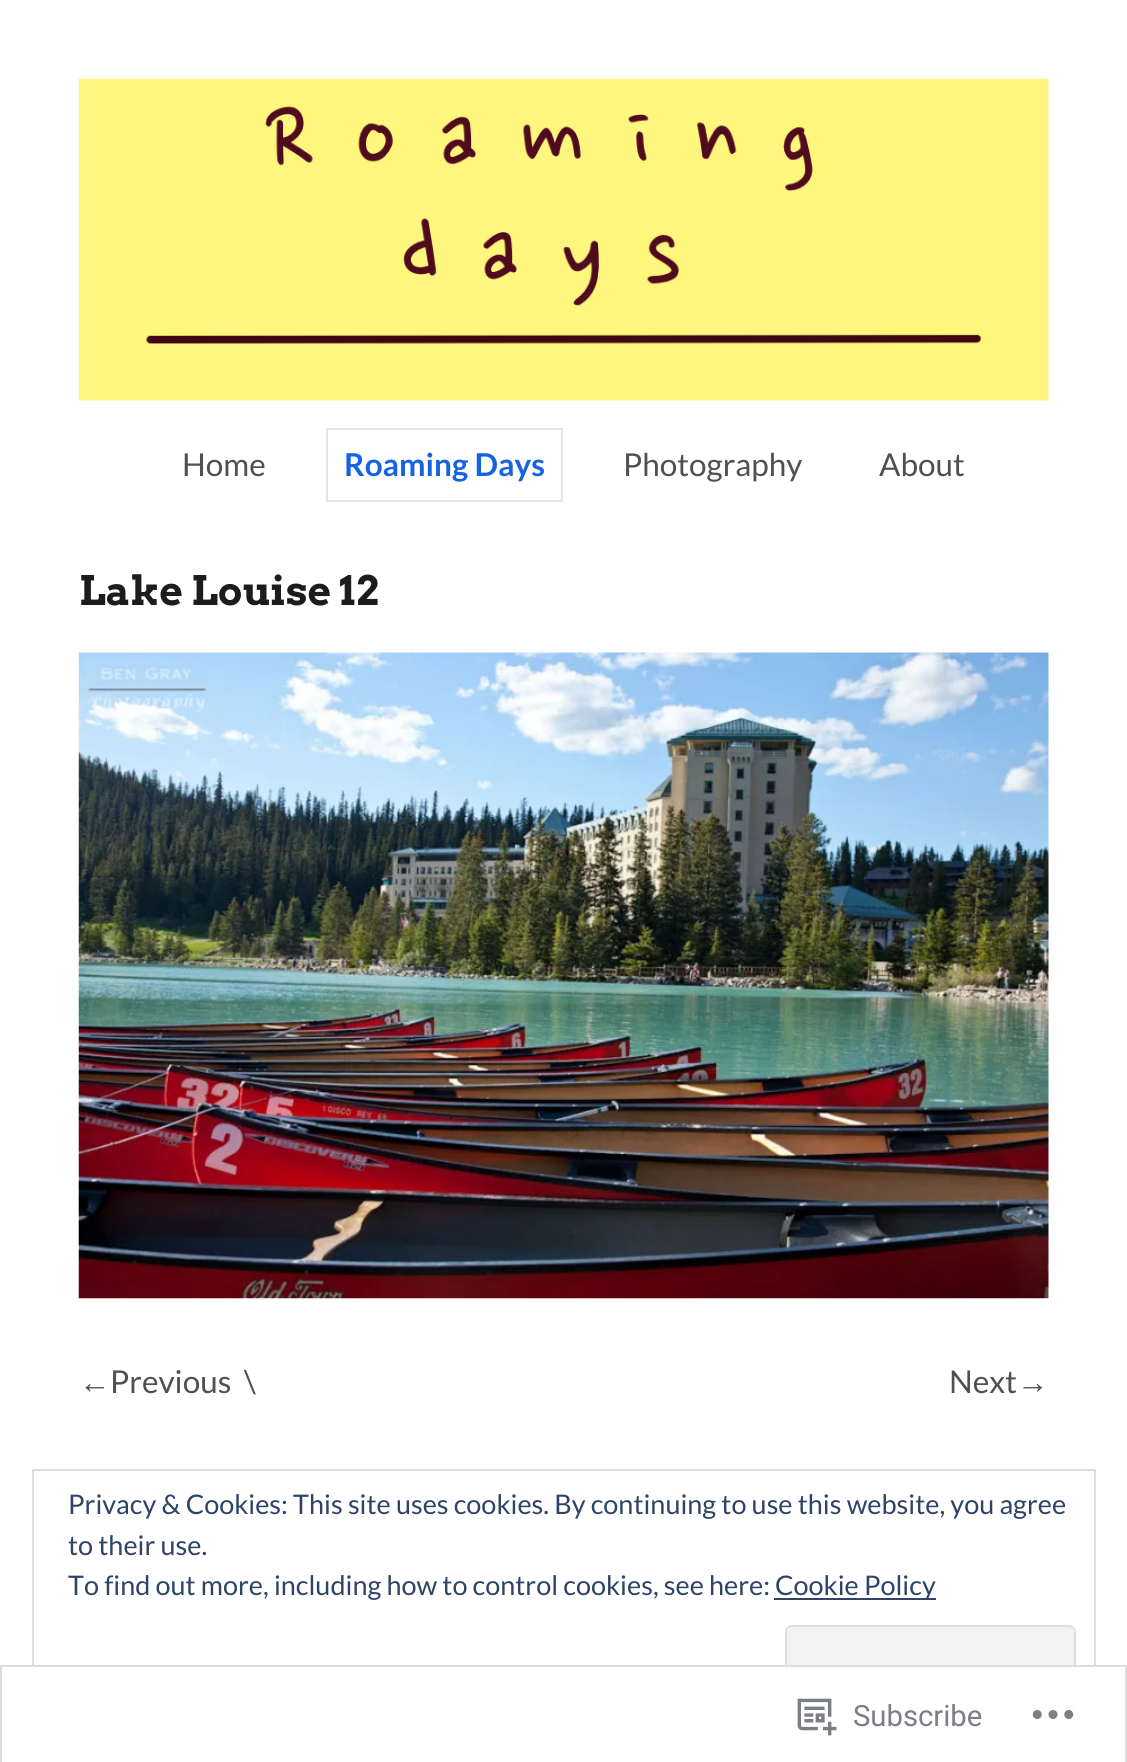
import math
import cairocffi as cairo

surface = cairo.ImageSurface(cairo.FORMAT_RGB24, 1127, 1762)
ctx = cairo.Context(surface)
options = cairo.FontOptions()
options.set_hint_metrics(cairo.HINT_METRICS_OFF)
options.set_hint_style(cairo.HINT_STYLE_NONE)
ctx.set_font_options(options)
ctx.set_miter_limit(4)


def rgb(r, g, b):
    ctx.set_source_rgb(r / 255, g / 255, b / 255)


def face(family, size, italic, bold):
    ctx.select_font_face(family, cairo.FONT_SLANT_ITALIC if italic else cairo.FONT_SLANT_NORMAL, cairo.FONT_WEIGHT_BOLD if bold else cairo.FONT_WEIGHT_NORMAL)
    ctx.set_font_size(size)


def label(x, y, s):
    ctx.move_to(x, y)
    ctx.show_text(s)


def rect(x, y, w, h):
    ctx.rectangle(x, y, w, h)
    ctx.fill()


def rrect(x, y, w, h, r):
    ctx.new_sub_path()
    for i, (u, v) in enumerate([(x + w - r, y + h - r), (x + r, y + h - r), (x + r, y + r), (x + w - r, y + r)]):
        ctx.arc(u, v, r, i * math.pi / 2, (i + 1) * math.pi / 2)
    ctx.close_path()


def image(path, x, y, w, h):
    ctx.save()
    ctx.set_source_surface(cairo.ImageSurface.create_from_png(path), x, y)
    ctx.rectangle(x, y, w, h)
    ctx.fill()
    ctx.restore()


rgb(255, 255, 255)
ctx.paint()
image('image0.png', 78, 78, 971, 323)
face('Lato', 31.5, 0, 0)
rgb(80, 80, 80)
label(182, 476, 'Home')
ctx.rectangle(327, 429, 235, 72)
rgb(229, 229, 229)
ctx.stroke()
face('Lato', 31.5, 0, 1)
rgb(21, 99, 229)
label(344, 476, 'Roaming Days')
face('Lato', 31.5, 0, 0)
rgb(80, 80, 80)
label(623, 476, 'Photography')
label(879, 476, 'About')
face('Arvo', 40.5, 0, 1)
rgb(28, 28, 28)
label(79, 605, 'Lake Louise 12')
image('image1.png', 78, 652, 971, 647)
face('Liberation Sans', 31.5, 0, 0)
rgb(80, 80, 80)
label(79, 1393, '←')
face('Lato', 31.5, 0, 0)
label(110, 1393, 'Previous')
label(244, 1393, '\\')
label(949, 1393, 'Next')
face('Liberation Sans', 31.5, 0, 0)
label(1017, 1393, '→')
image('image2.png', 547, 1733, 36, 6)
ctx.rectangle(33, 1470, 1062, 262)
rgb(222, 222, 222)
ctx.stroke()
face('Lato', 27, 0, 0)
rgb(46, 68, 103)
label(68, 1514, 'Privacy & Cookies: This site uses cookies. By continuing to use this website, you agree')
label(68, 1555, 'to their use.')
label(68, 1595, 'To find out more, including how to control cookies, see here:')
rect(774, 1598, 162, 2)
label(775, 1595, 'Cookie Policy')
rgb(243, 243, 243)
rrect(786, 1626, 289, 85, 6)
ctx.fill_preserve()
rgb(222, 222, 222)
ctx.stroke()
ctx.set_source_rgba(1, 1, 1, 0.98)
rect(32, 1665, 1064, 74)
ctx.rectangle(1, 1666, 1125, 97)
ctx.set_source_rgba(0.863, 0.863, 0.871, 0.98)
ctx.stroke()
image('image3.png', 797, 1698, 40, 38)
face('Roboto', 29.25, 0, 0)
rgb(123, 127, 132)
label(853, 1726, 'Subscribe')
image('image4.png', 1032, 1710, 42, 9)
surface.write_to_png('render.png')
